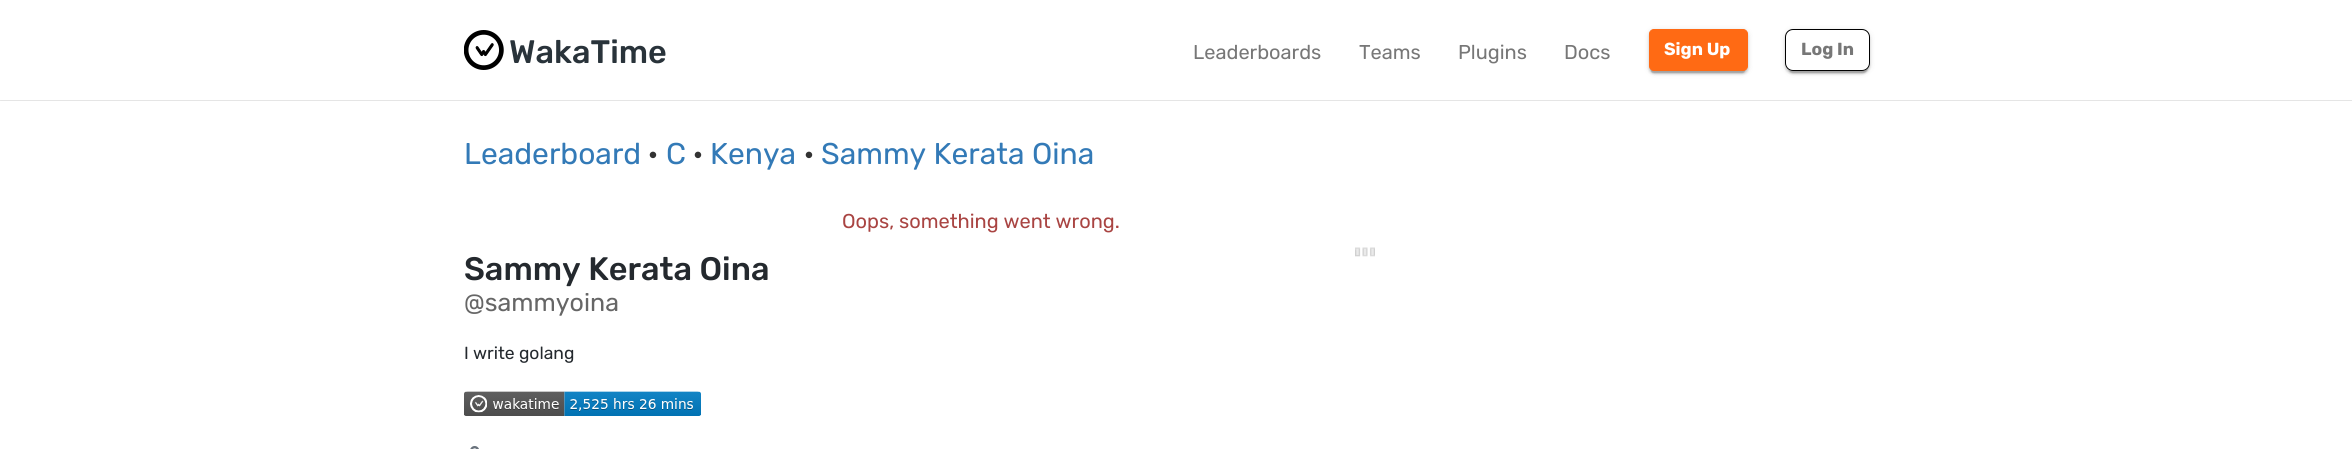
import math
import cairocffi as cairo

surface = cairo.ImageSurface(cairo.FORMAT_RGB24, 2352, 449)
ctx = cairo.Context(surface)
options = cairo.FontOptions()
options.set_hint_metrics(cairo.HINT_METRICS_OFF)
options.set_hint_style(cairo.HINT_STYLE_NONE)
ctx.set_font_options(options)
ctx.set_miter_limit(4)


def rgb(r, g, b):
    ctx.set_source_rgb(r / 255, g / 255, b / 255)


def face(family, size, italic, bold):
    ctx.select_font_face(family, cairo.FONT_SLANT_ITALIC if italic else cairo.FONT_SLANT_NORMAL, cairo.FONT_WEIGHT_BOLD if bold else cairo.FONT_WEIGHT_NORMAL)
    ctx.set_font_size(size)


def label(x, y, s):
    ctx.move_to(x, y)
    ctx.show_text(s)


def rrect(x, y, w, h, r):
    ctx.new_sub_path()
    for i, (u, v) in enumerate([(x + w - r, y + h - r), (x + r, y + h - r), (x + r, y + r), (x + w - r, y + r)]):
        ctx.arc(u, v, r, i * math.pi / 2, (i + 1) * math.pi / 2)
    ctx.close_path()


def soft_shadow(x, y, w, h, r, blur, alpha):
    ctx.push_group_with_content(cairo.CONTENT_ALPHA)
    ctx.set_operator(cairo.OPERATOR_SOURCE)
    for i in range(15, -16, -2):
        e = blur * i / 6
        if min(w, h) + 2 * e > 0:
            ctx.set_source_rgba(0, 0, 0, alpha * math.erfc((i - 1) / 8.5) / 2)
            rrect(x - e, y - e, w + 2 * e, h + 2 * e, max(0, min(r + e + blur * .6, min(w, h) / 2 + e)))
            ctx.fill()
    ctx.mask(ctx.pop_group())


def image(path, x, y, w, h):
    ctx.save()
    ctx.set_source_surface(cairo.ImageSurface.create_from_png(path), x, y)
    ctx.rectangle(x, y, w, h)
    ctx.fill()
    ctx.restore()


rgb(255, 255, 255)
ctx.paint()
ctx.save()
ctx.rectangle(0, 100, 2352, 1)
ctx.clip()
rgb(0, 0, 0)
soft_shadow(0, 0, 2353, 100, 0, 1, 0.3)
ctx.restore()
image('image0.png', 464, 30, 40, 40)
face('Rubik Medium', 32.5, 0, 0)
rgb(41, 51, 58)
label(509, 63, 'WakaTime')
face('Rubik', 20, 0, 0)
rgb(119, 119, 119)
label(1193, 59, 'Leaderboards')
label(1359, 59, 'Teams')
label(1458, 59, 'Plugins')
label(1564, 59, 'Docs')
rgb(0, 0, 0)
soft_shadow(1649, 30, 99, 43, 5, 3, 0.12)
soft_shadow(1649, 31, 99, 43, 5, 1, 0.14)
soft_shadow(1651, 35, 94, 38, 2.5, 0.5, 0.2)
rgb(255, 106, 20)
rrect(1649.5, 29.5, 98, 41, 4.5)
ctx.fill_preserve()
ctx.set_line_width(1)
ctx.stroke()
face('Rubik', 17.5, 0, 1)
rgb(255, 255, 255)
label(1664, 55, 'Sign Up')
ctx.save()
ctx.set_fill_rule(cairo.FILL_RULE_EVEN_ODD)
ctx.new_path()
ctx.move_to(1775, 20)
ctx.line_to(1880, 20)
ctx.line_to(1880, 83)
ctx.line_to(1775, 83)
ctx.close_path()
ctx.move_to(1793, 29)
ctx.line_to(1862, 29)
ctx.curve_to(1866.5, 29, 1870, 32.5, 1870, 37)
ctx.line_to(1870, 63)
ctx.curve_to(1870, 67.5, 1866.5, 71, 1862, 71)
ctx.line_to(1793, 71)
ctx.curve_to(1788.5, 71, 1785, 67.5, 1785, 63)
ctx.line_to(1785, 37)
ctx.curve_to(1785, 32.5, 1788.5, 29, 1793, 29)
ctx.close_path()
ctx.clip()
rgb(0, 0, 0)
soft_shadow(1785, 30, 85, 43, 8, 3, 0.12)
ctx.restore()
ctx.save()
ctx.set_fill_rule(cairo.FILL_RULE_EVEN_ODD)
ctx.new_path()
ctx.move_to(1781, 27)
ctx.line_to(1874, 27)
ctx.line_to(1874, 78)
ctx.line_to(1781, 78)
ctx.close_path()
ctx.move_to(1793, 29)
ctx.line_to(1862, 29)
ctx.curve_to(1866.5, 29, 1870, 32.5, 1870, 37)
ctx.line_to(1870, 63)
ctx.curve_to(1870, 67.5, 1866.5, 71, 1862, 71)
ctx.line_to(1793, 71)
ctx.curve_to(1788.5, 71, 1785, 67.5, 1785, 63)
ctx.line_to(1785, 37)
ctx.curve_to(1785, 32.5, 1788.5, 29, 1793, 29)
ctx.close_path()
ctx.clip()
rgb(0, 0, 0)
soft_shadow(1785, 31, 85, 43, 8, 1, 0.14)
ctx.restore()
ctx.save()
ctx.set_fill_rule(cairo.FILL_RULE_EVEN_ODD)
ctx.new_path()
ctx.move_to(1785, 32)
ctx.line_to(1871, 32)
ctx.line_to(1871, 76)
ctx.line_to(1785, 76)
ctx.close_path()
ctx.move_to(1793, 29)
ctx.line_to(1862, 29)
ctx.curve_to(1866.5, 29, 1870, 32.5, 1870, 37)
ctx.line_to(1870, 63)
ctx.curve_to(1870, 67.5, 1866.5, 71, 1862, 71)
ctx.line_to(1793, 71)
ctx.curve_to(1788.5, 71, 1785, 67.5, 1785, 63)
ctx.line_to(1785, 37)
ctx.curve_to(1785, 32.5, 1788.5, 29, 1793, 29)
ctx.close_path()
ctx.clip()
rgb(0, 0, 0)
soft_shadow(1788, 35, 80, 38, 5, 0.5, 0.2)
ctx.restore()
rrect(1785.5, 29.5, 84, 41, 7.5)
rgb(0, 0, 0)
ctx.stroke()
rgb(119, 119, 119)
label(1801, 55, 'Log In')
face('Rubik', 30, 0, 0)
rgb(51, 122, 183)
label(464, 164, 'Leaderboard')
rgb(51, 51, 51)
label(648, 164, '·')
rgb(51, 122, 183)
label(666, 164, 'C')
rgb(51, 51, 51)
label(693, 164, '·')
rgb(51, 122, 183)
label(710, 164, 'Kenya')
rgb(51, 51, 51)
label(804, 164, '·')
rgb(51, 122, 183)
label(821, 164, 'Sammy Kerata Oina')
face('Rubik', 20, 0, 0)
rgb(169, 68, 66)
label(842, 228, 'Oops, something went wrong.')
image('image1.png', 1355, 247, 20, 10)
face('Rubik Medium', 32.5, 0, 0)
rgb(36, 41, 46)
label(464, 280, 'Sammy Kerata Oina')
face('Rubik', 25, 0, 0)
rgb(102, 102, 102)
label(464, 311, '@sammyoina')
face('Rubik', 17.5, 0, 0)
rgb(36, 41, 46)
label(464, 359, 'I write golang')
image('image2.png', 464, 391, 237, 25)
image('image3.png', 470, 446, 9, 3)
surface.write_to_png('render.png')
